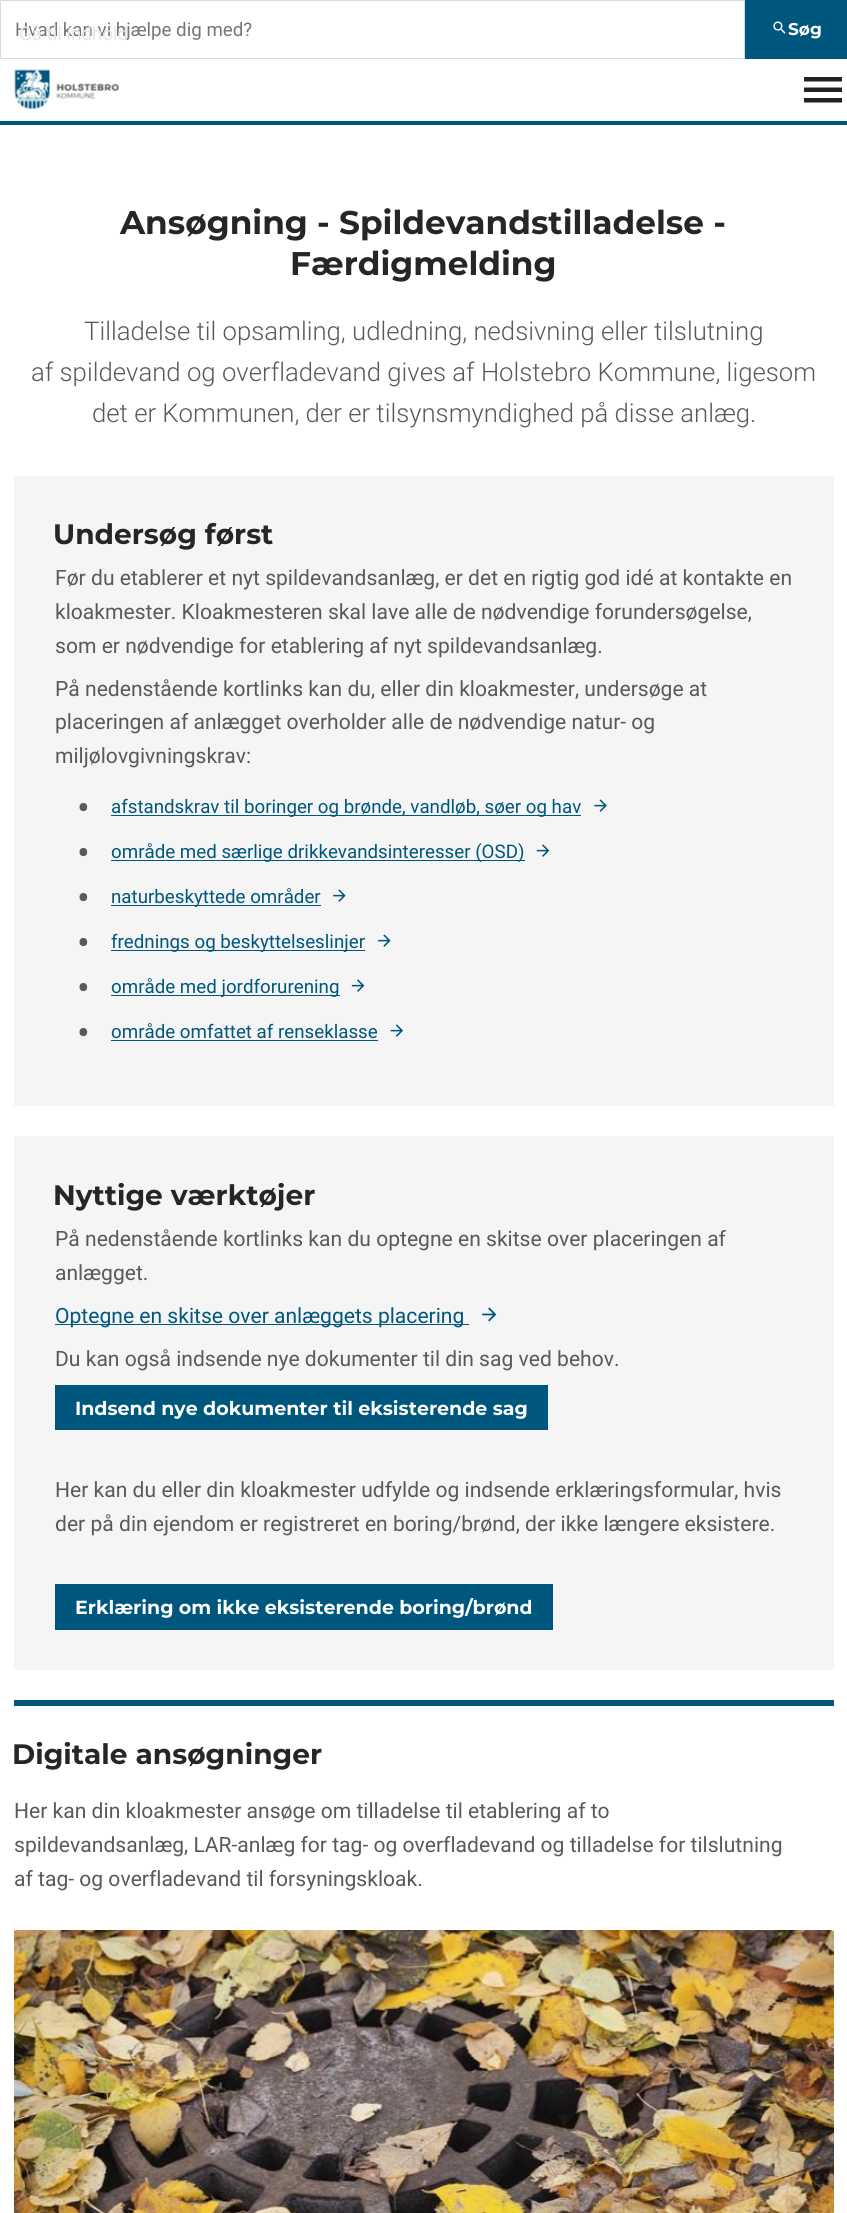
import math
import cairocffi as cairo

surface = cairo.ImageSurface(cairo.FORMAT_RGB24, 847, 2213)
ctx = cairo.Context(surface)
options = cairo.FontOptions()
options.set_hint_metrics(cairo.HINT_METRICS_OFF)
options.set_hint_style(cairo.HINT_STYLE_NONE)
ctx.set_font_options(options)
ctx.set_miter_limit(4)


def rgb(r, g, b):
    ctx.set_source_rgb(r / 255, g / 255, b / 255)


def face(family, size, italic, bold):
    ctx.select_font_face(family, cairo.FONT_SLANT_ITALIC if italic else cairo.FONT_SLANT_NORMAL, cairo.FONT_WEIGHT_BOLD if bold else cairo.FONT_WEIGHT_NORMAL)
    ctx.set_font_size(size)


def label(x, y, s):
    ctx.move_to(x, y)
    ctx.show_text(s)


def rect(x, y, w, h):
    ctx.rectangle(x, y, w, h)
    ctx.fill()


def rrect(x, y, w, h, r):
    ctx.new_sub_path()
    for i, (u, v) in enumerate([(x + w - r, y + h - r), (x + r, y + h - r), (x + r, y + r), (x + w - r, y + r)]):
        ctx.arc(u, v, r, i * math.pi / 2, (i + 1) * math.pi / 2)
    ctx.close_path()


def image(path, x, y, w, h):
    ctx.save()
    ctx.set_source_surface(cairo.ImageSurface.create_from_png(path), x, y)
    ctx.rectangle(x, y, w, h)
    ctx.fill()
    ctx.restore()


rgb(255, 255, 255)
ctx.paint()
rrect(0.5, 0.5, 744, 58, 0.5)
rgb(217, 217, 217)
ctx.set_line_width(1)
ctx.stroke()
face('Roboto', 18.75, 0, 0)
rgb(117, 117, 117)
label(15, 36, 'Hvad kan vi hjælpe dig med?')
rgb(0, 87, 125)
rect(745, 0, 102, 59)
image('image0.png', 773, 21, 13, 13)
face('Montserrat', 17, 0, 1)
rgb(255, 255, 255)
label(788, 35, 'Søg')
rgb(0, 87, 125)
rect(0, 121, 847, 4)
image('image1.png', 14, 69, 105, 40)
rgb(34, 34, 34)
ctx.new_path()
ctx.move_to(804, 77)
ctx.line_to(842, 77)
ctx.line_to(842, 81.5)
ctx.line_to(804, 81.5)
ctx.close_path()
ctx.move_to(804, 92)
ctx.line_to(804, 87.5)
ctx.line_to(842, 87.5)
ctx.line_to(842, 92)
ctx.close_path()
ctx.move_to(804, 102.5)
ctx.line_to(804, 98)
ctx.line_to(842, 98)
ctx.line_to(842, 102.5)
ctx.close_path()
ctx.fill()
face('Roboto', 18.75, 0, 0)
rgb(231, 231, 231)
label(19, 40, 'Gå til indhold')
face('Montserrat', 32.8, 0, 1)
rgb(38, 38, 38)
label(120, 234, 'Ansøgning - Spildevandstilladelse -')
label(290, 275, 'Færdigmelding')
face('Roboto Light', 25.75, 0, 0)
rgb(89, 89, 89)
label(84, 340, 'Tilladelse til opsamling, udledning, nedsivning eller tilslutning')
label(31, 381, 'af spildevand og overfladevand gives af Holstebro Kommune, ligesom')
label(92, 422, 'det er Kommunen, der er tilsynsmyndighed på disse anlæg.')
rgb(245, 245, 245)
rect(14, 476, 820, 630)
face('Montserrat', 28.1, 0, 1)
rgb(38, 38, 38)
label(53, 544, 'Undersøg først')
face('Roboto', 21.1, 0, 0)
rgb(89, 89, 89)
label(55, 585, 'Før du etablerer et nyt spildevandsanlæg, er det en rigtig god idé at kontakte en')
label(55, 619, 'kloakmester. Kloakmesteren skal lave alle de nødvendige forundersøgelse,')
label(55, 653, 'som er nødvendige for etablering af nyt spildevandsanlæg.')
label(55, 696, 'På nedenstående kortlinks kan du, eller din kloakmester, undersøge at')
label(55, 729, 'placeringen af anlægget overholder alle de nødvendige natur- og')
label(55, 763, 'miljølovgivningskrav:')
face('Roboto', 38, 0, 0)
label(77, 821, '•')
rgb(0, 87, 125)
rect(111, 815, 470, 1)
face('Roboto', 18.75, 0, 0)
label(111, 813, 'afstandskrav til boringer og brønde, vandløb, søer og hav')
image('image2.png', 594, 799, 13, 13)
face('Roboto', 38, 0, 0)
rgb(89, 89, 89)
label(77, 866, '•')
rgb(0, 87, 125)
rect(111, 860, 414, 1)
face('Roboto', 18.75, 0, 0)
label(111, 858, 'område med særlige drikkevandsinteresser (OSD)')
image('image3.png', 536, 844, 14, 13)
face('Roboto', 38, 0, 0)
rgb(89, 89, 89)
label(77, 911, '•')
rgb(0, 87, 125)
rect(111, 905, 210, 1)
face('Roboto', 18.75, 0, 0)
label(111, 903, 'naturbeskyttede områder')
image('image4.png', 333, 889, 13, 13)
face('Roboto', 38, 0, 0)
rgb(89, 89, 89)
label(77, 956, '•')
rgb(0, 87, 125)
rect(111, 950, 254, 1)
face('Roboto', 18.75, 0, 0)
label(111, 948, 'frednings og beskyttelseslinjer')
image('image4.png', 378, 934, 13, 13)
face('Roboto', 38, 0, 0)
rgb(89, 89, 89)
label(77, 1001, '•')
rgb(0, 87, 125)
rect(111, 995, 229, 1)
face('Roboto', 18.75, 0, 0)
label(111, 993, 'område med jordforurening')
image('image3.png', 351, 979, 14, 13)
face('Roboto', 38, 0, 0)
rgb(89, 89, 89)
label(77, 1046, '•')
face('Roboto', 18.75, 0, 0)
rgb(0, 87, 125)
label(111, 1038, 'område omfattet af renseklasse')
rect(111, 1040, 267, 1)
image('image5.png', 390, 1024, 13, 13)
rgb(245, 245, 245)
rect(14, 1136, 820, 534)
face('Montserrat', 28.1, 0, 1)
rgb(38, 38, 38)
label(53, 1205, 'Nyttige værktøjer')
face('Roboto', 21.1, 0, 0)
rgb(89, 89, 89)
label(55, 1246, 'På nedenstående kortlinks kan du optegne en skitse over placeringen af')
label(55, 1280, 'anlægget.')
rgb(0, 87, 125)
rect(55, 1324, 414, 1)
label(55, 1323, 'Optegne en skitse over anlæggets placering')
image('image6.png', 482, 1307, 15, 15)
rgb(89, 89, 89)
label(55, 1366, 'Du kan også indsende nye dokumenter til din sag ved behov.')
rgb(0, 87, 125)
rect(55, 1385, 493, 45)
face('Montserrat', 19, 0, 1)
rgb(255, 255, 255)
label(75, 1415, 'Indsend nye dokumenter til eksisterende sag')
face('Roboto', 21.1, 0, 0)
rgb(89, 89, 89)
label(55, 1497, 'Her kan du eller din kloakmester udfylde og indsende erklæringsformular, hvis')
label(55, 1531, 'der på din ejendom er registreret en boring/brønd, der ikke længere eksistere.')
rgb(0, 87, 125)
rect(55, 1584, 498, 46)
face('Montserrat', 19, 0, 1)
rgb(255, 255, 255)
label(75, 1614, 'Erklæring om ikke eksisterende boring/brønd')
rgb(0, 87, 125)
rect(14, 1700, 820, 6)
face('Montserrat', 28.1, 0, 1)
rgb(38, 38, 38)
label(12, 1764, 'Digitale ansøgninger')
face('Roboto', 21.1, 0, 0)
rgb(89, 89, 89)
label(14, 1818, 'Her kan din kloakmester ansøge om tilladelse til etablering af to')
label(14, 1852, 'spildevandsanlæg, LAR-anlæg for tag- og overfladevand og tilladelse for tilslutning')
label(14, 1886, 'af tag- og overfladevand til forsyningskloak.')
image('image7.png', 14, 1930, 820, 283)
surface.write_to_png('render.png')
